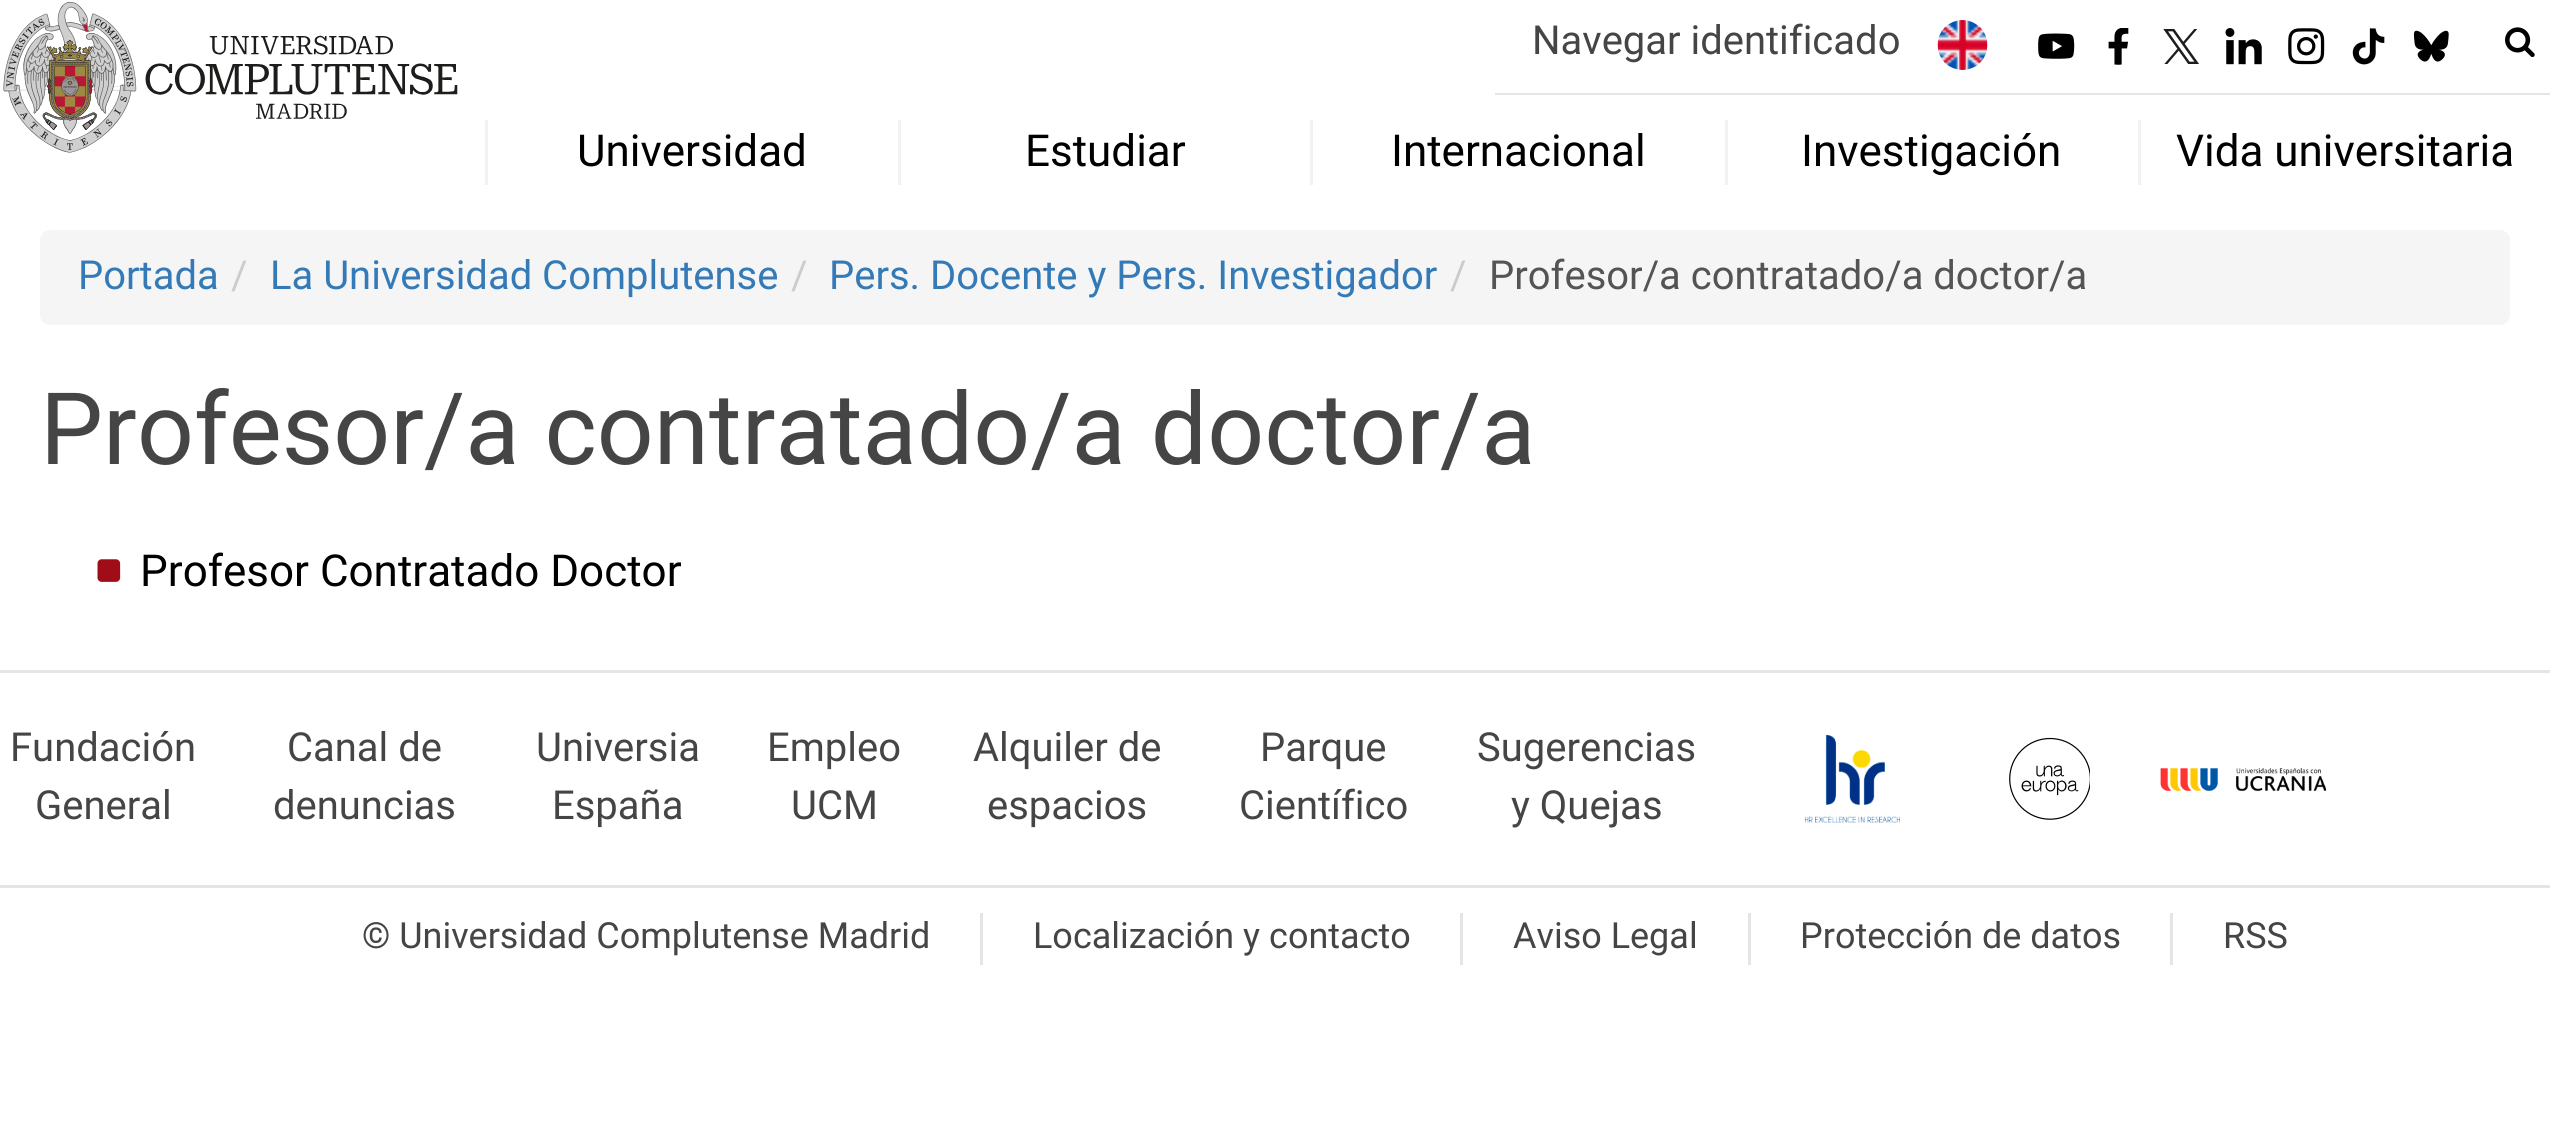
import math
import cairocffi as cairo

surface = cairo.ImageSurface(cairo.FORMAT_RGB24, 2550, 1127)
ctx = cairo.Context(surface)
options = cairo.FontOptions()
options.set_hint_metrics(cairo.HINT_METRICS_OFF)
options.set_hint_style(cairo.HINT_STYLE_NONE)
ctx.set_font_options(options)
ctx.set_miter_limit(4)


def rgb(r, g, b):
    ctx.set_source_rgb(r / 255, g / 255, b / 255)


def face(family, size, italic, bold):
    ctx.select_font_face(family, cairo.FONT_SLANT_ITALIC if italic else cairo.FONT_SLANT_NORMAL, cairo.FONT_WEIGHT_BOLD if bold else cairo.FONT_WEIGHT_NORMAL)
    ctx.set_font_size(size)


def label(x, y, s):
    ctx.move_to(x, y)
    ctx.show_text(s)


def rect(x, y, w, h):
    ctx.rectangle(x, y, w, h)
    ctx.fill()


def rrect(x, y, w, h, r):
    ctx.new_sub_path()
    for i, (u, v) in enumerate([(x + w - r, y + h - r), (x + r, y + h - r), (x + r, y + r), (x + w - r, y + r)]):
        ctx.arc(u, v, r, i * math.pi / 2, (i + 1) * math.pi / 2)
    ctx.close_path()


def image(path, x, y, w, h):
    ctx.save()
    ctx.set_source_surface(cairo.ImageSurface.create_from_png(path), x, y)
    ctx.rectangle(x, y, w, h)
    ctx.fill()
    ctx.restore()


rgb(255, 255, 255)
ctx.paint()
image('image0.png', 3, 2, 455, 151)
rgb(229, 229, 229)
rect(1495, 93, 1055, 2)
face('Roboto', 40, 0, 0)
rgb(69, 69, 69)
label(1532, 54, 'Navegar identificado')
image('image1.png', 1937, 20, 51, 50)
image('image2.png', 2038, 33, 37, 26)
image('image3.png', 2108, 28, 21, 37)
image('image4.png', 2163, 29, 36, 35)
image('image5.png', 2225, 28, 37, 37)
image('image6.png', 2288, 28, 37, 37)
image('image7.png', 2352, 28, 33, 37)
image('image8.png', 2413, 30, 36, 32)
image('image9.png', 2505, 27, 30, 31)
rgb(242, 242, 242)
rect(485, 120, 3, 65)
face('Roboto', 44, 0, 0)
rgb(0, 0, 0)
label(577, 166, 'Universidad')
rgb(242, 242, 242)
rect(898, 120, 3, 65)
rgb(0, 0, 0)
label(1025, 166, 'Estudiar')
rgb(242, 242, 242)
rect(1310, 120, 3, 65)
rgb(0, 0, 0)
label(1391, 166, 'Internacional')
rgb(242, 242, 242)
rect(1725, 120, 3, 65)
rgb(0, 0, 0)
label(1801, 166, 'Investigación')
rgb(242, 242, 242)
rect(2138, 120, 3, 65)
rgb(0, 0, 0)
label(2176, 166, 'Vida universitaria')
rgb(245, 245, 245)
rrect(40, 230, 2470, 95, 10)
ctx.fill()
face('Roboto', 40, 0, 0)
rgb(51, 122, 183)
label(78, 289, 'Portada')
rgb(204, 204, 204)
label(231, 289, '/')
rgb(51, 122, 183)
label(270, 289, 'La Universidad Complutense')
rgb(204, 204, 204)
label(791, 289, '/')
rgb(51, 122, 183)
label(829, 289, 'Pers. Docente y Pers. Investigador')
rgb(204, 204, 204)
label(1450, 289, '/')
rgb(85, 83, 84)
label(1489, 289, 'Profesor/a contratado/a doctor/a')
face('Roboto', 100, 0, 0)
rgb(69, 69, 69)
label(40, 464, 'Profesor/a contratado/a doctor/a')
image('image10.png', 97, 559, 24, 23)
face('Roboto', 44, 0, 0)
rgb(0, 0, 0)
label(140, 586, 'Profesor Contratado Doctor')
rgb(229, 229, 229)
rect(0, 670, 2550, 3)
face('Roboto', 40, 0, 0)
rgb(69, 69, 69)
label(10, 761, 'Fundación')
label(35, 819, 'General')
label(287, 761, 'Canal de')
label(273, 819, 'denuncias')
label(536, 761, 'Universia')
label(552, 819, 'España')
label(767, 761, 'Empleo')
label(791, 819, 'UCM')
label(973, 761, 'Alquiler de')
label(987, 819, 'espacios')
label(1260, 761, 'Parque')
label(1239, 819, 'Científico')
label(1477, 761, 'Sugerencias')
label(1511, 819, 'y Quejas')
image('image11.png', 1805, 735, 95, 88)
image('image12.png', 2009, 737, 81, 83)
image('image13.png', 2160, 768, 167, 24)
rgb(229, 229, 229)
rect(0, 885, 2550, 3)
rect(980, 913, 3, 52)
face('Roboto', 36, 0, 0)
rgb(69, 69, 69)
label(362, 948, '© Universidad Complutense Madrid')
rgb(229, 229, 229)
rect(1460, 913, 3, 52)
rgb(69, 69, 69)
label(1033, 948, 'Localización y contacto')
rgb(229, 229, 229)
rect(1748, 913, 3, 52)
rgb(69, 69, 69)
label(1513, 948, 'Aviso Legal')
rgb(229, 229, 229)
rect(2170, 913, 3, 52)
rgb(69, 69, 69)
label(1800, 948, 'Protección de datos')
label(2223, 948, 'RSS')
surface.write_to_png('render.png')
